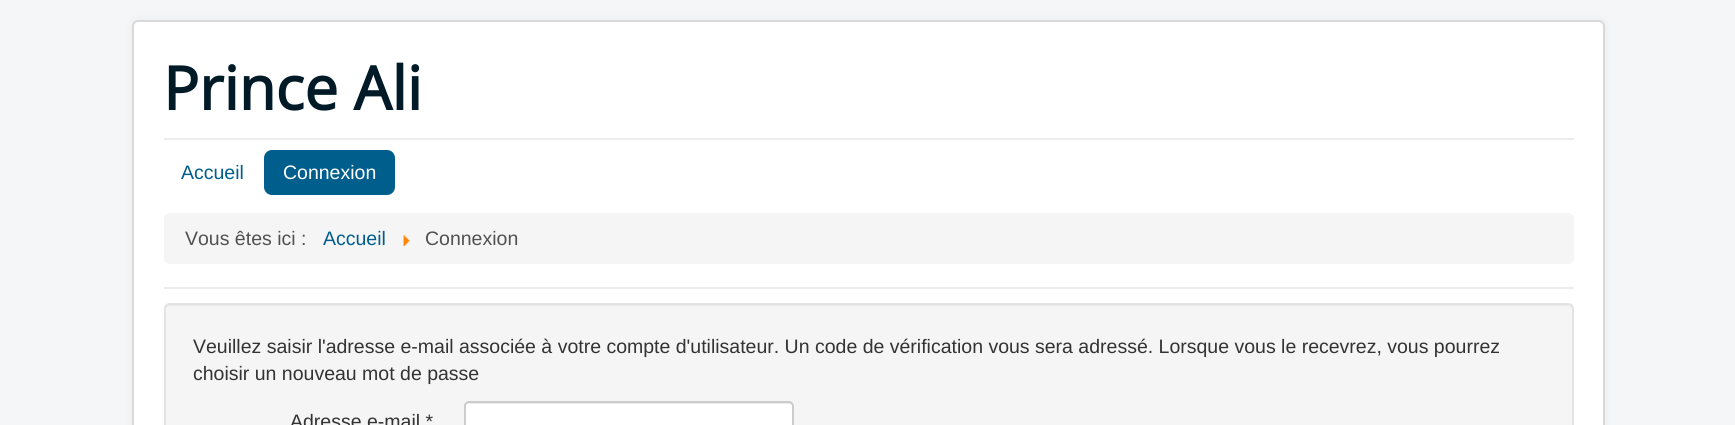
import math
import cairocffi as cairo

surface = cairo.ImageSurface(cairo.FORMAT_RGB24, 1735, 425)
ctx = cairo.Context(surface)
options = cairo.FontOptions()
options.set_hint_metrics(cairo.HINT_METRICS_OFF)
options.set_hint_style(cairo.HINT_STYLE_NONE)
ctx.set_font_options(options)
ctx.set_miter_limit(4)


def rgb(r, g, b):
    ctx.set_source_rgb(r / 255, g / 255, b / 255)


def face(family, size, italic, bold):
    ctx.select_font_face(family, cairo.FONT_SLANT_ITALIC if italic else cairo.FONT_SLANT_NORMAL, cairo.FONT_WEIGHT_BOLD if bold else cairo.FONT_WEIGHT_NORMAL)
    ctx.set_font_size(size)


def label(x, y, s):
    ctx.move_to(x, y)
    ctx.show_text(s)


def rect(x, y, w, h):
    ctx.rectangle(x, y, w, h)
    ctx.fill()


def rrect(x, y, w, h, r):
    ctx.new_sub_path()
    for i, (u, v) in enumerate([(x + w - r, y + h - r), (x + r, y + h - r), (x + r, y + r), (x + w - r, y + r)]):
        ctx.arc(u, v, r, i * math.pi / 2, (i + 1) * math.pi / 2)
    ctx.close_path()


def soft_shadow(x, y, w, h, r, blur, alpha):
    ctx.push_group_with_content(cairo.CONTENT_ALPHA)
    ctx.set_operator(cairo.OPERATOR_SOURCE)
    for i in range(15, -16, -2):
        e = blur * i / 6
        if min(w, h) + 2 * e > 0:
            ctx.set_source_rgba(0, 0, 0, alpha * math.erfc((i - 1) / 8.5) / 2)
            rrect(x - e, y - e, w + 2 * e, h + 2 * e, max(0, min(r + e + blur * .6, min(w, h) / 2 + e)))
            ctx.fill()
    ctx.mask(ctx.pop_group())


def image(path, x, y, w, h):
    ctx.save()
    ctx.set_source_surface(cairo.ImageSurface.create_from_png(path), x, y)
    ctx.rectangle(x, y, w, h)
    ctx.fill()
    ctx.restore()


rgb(244, 246, 247)
ctx.paint()
rgb(0, 0, 0)
soft_shadow(132, 20, 1473, 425, 6, 4.5, 0.05)
rgb(255, 255, 255)
rrect(132, 20, 1473, 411, 6)
ctx.fill()
rrect(133, 21, 1471, 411, 5)
ctx.set_source_rgba(0, 0, 0, 0.15)
ctx.stroke()
face('Open Sans', 60, 0, 1)
rgb(0, 26, 39)
label(163, 110, 'Prince Ali')
rgb(236, 236, 236)
rect(164, 138, 1410, 2)
rect(164, 287, 1410, 2)
face('Liberation Sans', 19.5, 0, 0)
rgb(0, 94, 141)
label(181, 179, 'Accueil')
rrect(264, 150, 131, 45, 8)
ctx.fill()
rgb(255, 255, 255)
label(283, 179, 'Connexion')
rgb(245, 245, 245)
rrect(164, 213, 1410, 51, 6)
ctx.fill()
rgb(81, 81, 81)
label(185, 245, 'Vous êtes ici :')
rgb(0, 94, 141)
label(323, 245, 'Accueil')
image('image0.png', 403, 235, 7, 11)
rgb(81, 81, 81)
label(425, 245, 'Connexion')
rgb(245, 245, 245)
rrect(164, 303, 1410, 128, 6)
ctx.fill()
rgb(233, 233, 233)
ctx.new_path()
ctx.move_to(170, 306)
ctx.line_to(1568, 306)
ctx.curve_to(1570, 306, 1572, 308, 1572, 310)
ctx.curve_to(1572, 307, 1570, 305, 1567, 305)
ctx.line_to(170, 305)
ctx.curve_to(167, 305, 165, 307, 165, 310)
ctx.curve_to(165, 308, 167, 306, 170, 306)
ctx.close_path()
ctx.fill()
rrect(165, 304, 1408, 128, 5)
rgb(227, 227, 227)
ctx.stroke()
rgb(51, 51, 51)
label(193, 353, 'Veuillez saisir l\'adresse e-mail associée à votre compte d\'utilisateur. Un code de vérification vous sera adressé. Lorsque vous le recevrez, vous pourrez')
label(193, 380, 'choisir un nouveau mot de passe')
label(290, 428, 'Adresse e-mail *')
rgb(255, 255, 255)
rrect(464, 401, 330, 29, 5)
ctx.fill()
rgb(236, 236, 236)
ctx.new_path()
ctx.move_to(468, 404)
ctx.line_to(789, 404)
ctx.curve_to(791, 404, 792, 405, 792, 406)
ctx.curve_to(792, 404, 791, 402, 789, 402)
ctx.line_to(468, 402)
ctx.curve_to(466, 402, 465, 404, 465, 406)
ctx.curve_to(465, 405, 466, 404, 468, 404)
ctx.close_path()
ctx.fill()
rrect(465, 402, 328, 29, 4)
rgb(204, 204, 204)
ctx.stroke()
surface.write_to_png('render.png')
